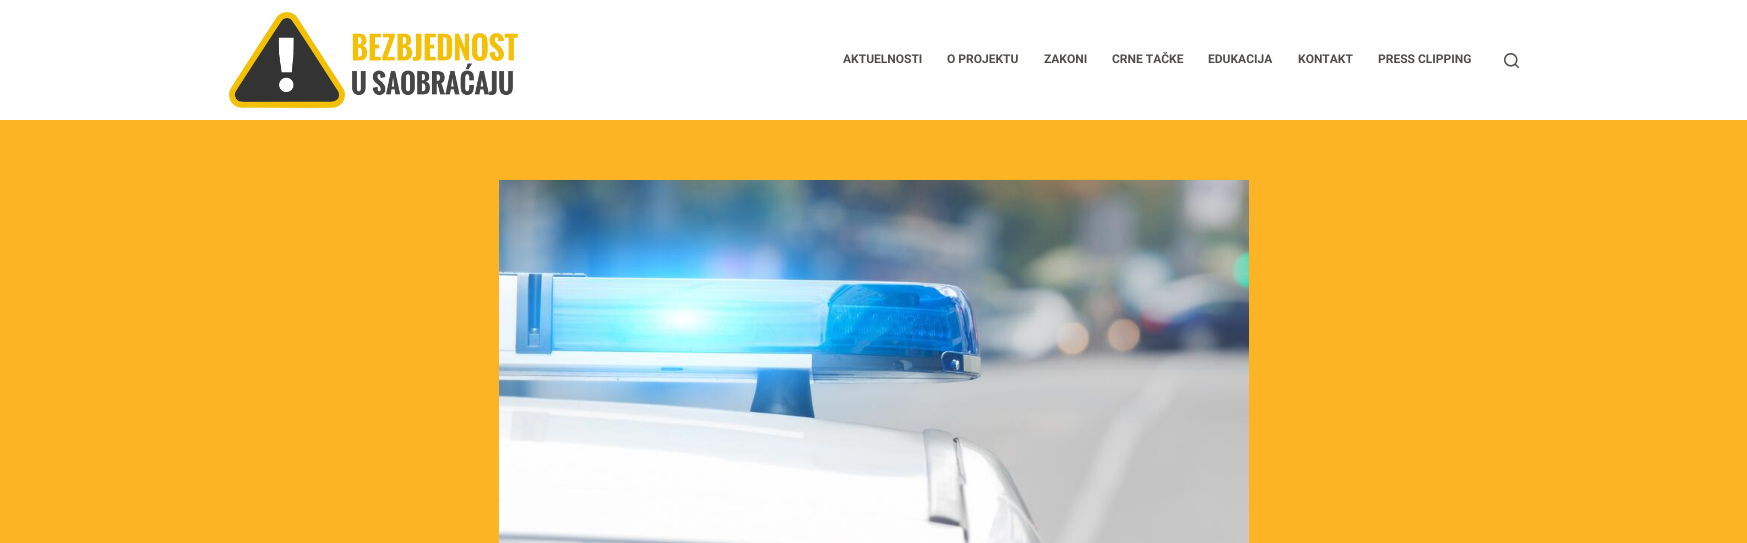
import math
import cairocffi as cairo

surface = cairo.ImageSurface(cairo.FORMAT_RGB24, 1747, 543)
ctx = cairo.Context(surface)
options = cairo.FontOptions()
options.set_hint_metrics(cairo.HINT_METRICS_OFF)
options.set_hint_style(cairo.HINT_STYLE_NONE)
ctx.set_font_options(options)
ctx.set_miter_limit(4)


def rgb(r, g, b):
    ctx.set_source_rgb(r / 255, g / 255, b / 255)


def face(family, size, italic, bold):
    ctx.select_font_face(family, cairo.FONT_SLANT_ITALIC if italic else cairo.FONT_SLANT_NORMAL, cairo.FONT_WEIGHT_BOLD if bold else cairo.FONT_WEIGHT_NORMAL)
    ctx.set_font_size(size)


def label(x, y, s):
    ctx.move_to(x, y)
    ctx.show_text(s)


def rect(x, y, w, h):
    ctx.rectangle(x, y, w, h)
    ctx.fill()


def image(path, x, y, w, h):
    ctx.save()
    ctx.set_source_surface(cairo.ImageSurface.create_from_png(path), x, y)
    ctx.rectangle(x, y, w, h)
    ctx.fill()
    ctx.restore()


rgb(252, 180, 36)
ctx.paint()
rgb(255, 255, 255)
rect(0, 0, 1747, 120)
image('image0.png', 229, 12, 289, 96)
face('Roboto', 12, 0, 1)
rgb(80, 78, 74)
label(843, 63, 'AKTUELNOSTI')
label(947, 63, 'O PROJEKTU')
label(1044, 63, 'ZAKONI')
label(1112, 63, 'CRNE TAČKE')
label(1208, 63, 'EDUKACIJA')
label(1298, 63, 'KONTAKT')
label(1378, 63, 'PRESS CLIPPING')
image('image1.png', 1504, 53, 15, 15)
image('image2.png', 499, 180, 750, 363)
surface.write_to_png('render.png')
